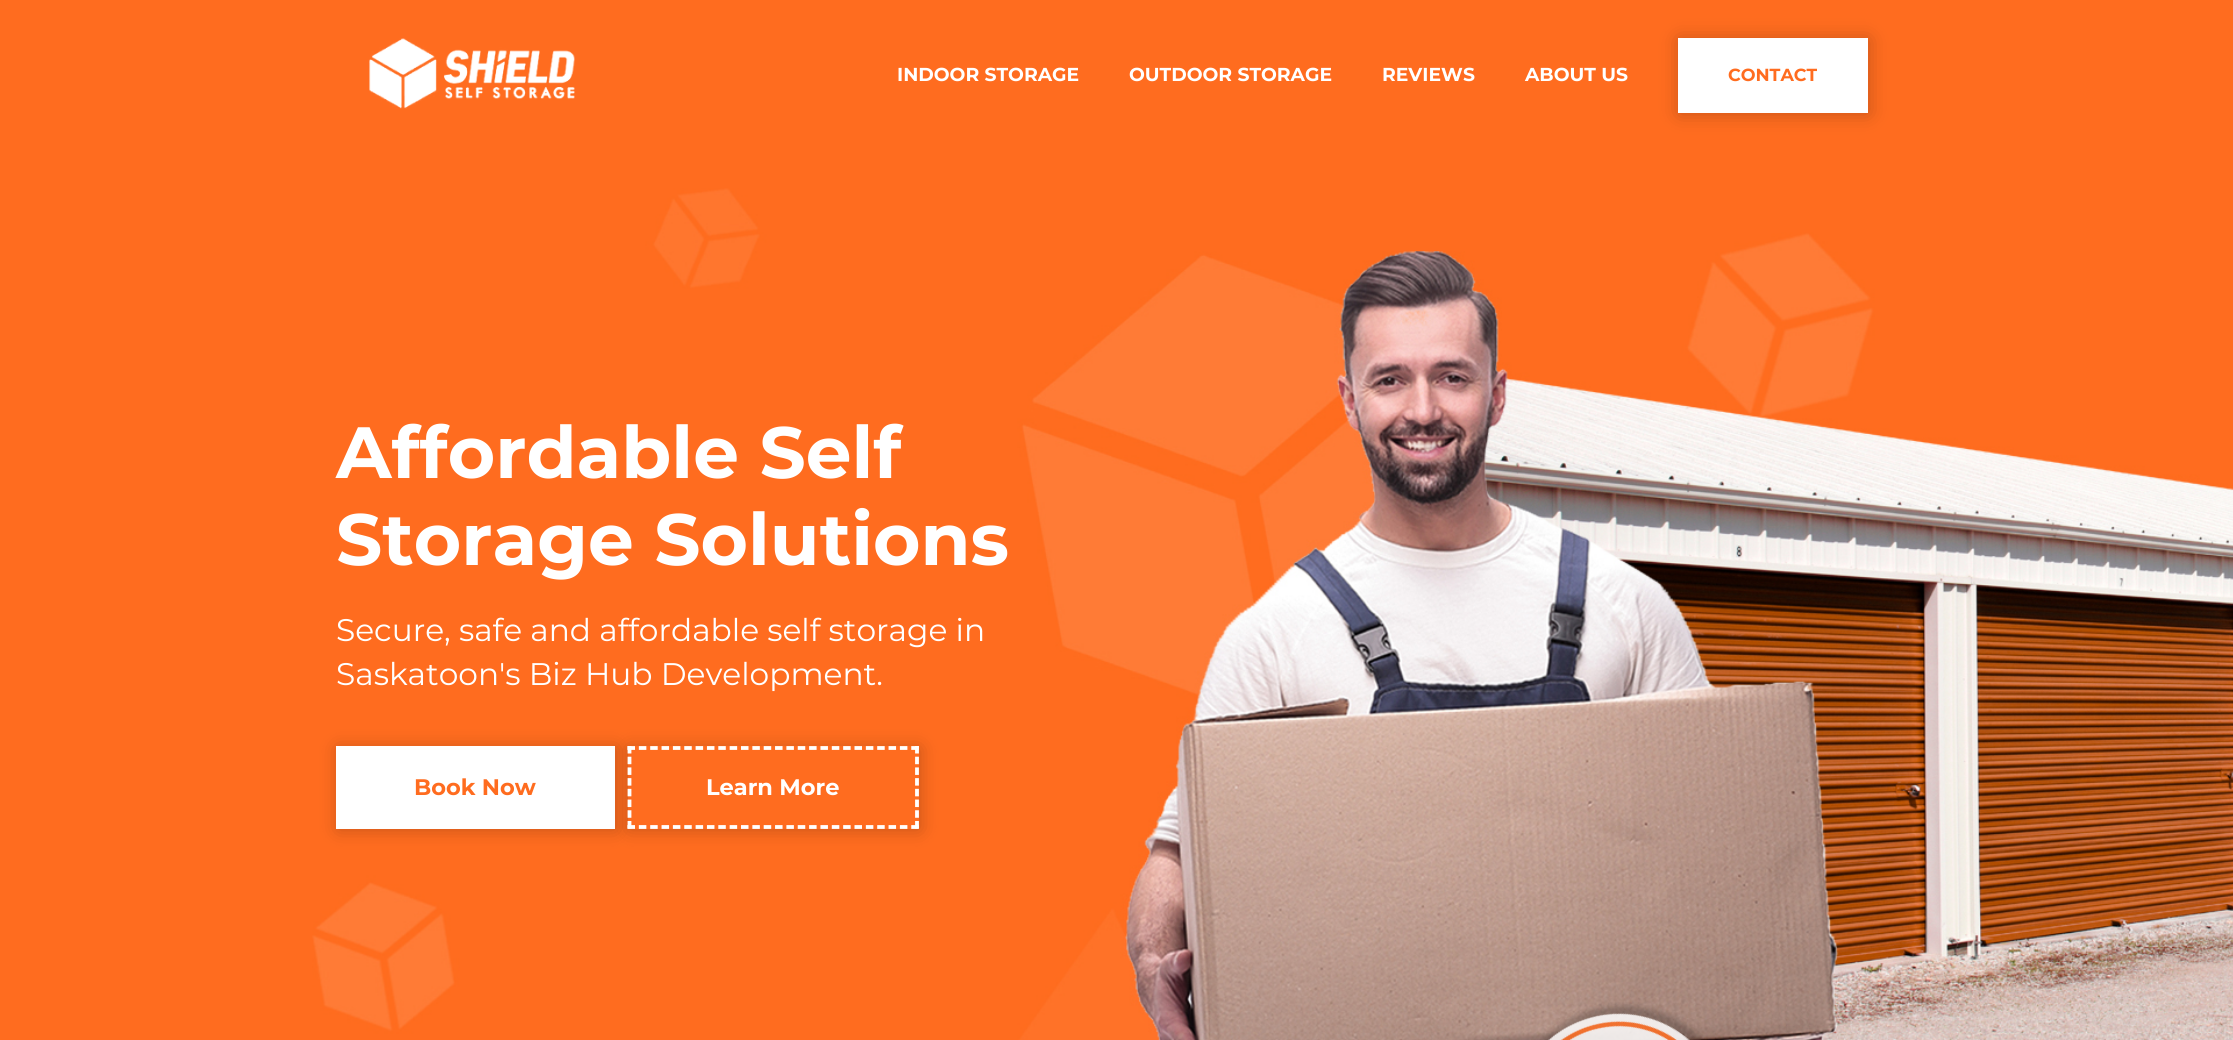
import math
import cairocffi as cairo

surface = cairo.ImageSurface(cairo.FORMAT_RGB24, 2233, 1040)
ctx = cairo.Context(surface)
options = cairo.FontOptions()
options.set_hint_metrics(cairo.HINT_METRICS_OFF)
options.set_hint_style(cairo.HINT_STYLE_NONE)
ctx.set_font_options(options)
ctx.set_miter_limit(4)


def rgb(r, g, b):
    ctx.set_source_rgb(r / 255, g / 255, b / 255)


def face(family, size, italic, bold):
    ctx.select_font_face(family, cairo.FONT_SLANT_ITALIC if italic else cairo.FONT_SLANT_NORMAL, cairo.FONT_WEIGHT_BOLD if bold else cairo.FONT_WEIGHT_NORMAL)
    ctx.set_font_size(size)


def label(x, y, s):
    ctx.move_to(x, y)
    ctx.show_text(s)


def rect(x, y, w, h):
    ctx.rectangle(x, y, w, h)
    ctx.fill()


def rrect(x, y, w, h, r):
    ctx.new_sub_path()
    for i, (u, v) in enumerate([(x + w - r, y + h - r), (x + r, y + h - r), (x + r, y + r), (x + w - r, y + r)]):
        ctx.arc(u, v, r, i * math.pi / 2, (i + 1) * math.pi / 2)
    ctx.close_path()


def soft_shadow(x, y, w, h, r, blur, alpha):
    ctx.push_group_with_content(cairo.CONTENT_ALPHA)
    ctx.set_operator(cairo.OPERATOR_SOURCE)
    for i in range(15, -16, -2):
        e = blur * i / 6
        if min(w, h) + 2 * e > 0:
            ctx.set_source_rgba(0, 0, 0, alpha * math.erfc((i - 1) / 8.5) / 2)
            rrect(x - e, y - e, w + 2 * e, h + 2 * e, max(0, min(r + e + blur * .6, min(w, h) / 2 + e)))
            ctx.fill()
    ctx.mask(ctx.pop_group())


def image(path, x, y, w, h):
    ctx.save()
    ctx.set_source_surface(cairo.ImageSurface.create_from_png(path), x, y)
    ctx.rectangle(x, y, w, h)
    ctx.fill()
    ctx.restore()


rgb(255, 108, 31)
ctx.paint()
image('image0.png', 369, 38, 206, 71)
face('Montserrat', 18.75, 0, 1)
rgb(255, 255, 255)
label(897, 81, 'INDOOR STORAGE')
label(1129, 81, 'OUTDOOR STORAGE')
label(1382, 81, 'REVIEWS')
label(1525, 81, 'ABOUT US')
rgb(0, 0, 0)
soft_shadow(1679, 39, 190, 75, 0, 9.5, 0.22)
rgb(255, 255, 255)
rect(1678, 38, 190, 75)
face('Montserrat', 17.5, 0, 1)
rgb(255, 108, 31)
label(1728, 81, 'CONTACT')
image('image1.png', 312, 188, 1921, 852)
face('Montserrat', 72.5, 0, 1)
rgb(255, 255, 255)
label(336, 478, 'Affordable Self')
label(336, 565, 'Storage Solutions')
face('Montserrat', 31.25, 0, 0)
label(336, 641, 'Secure, safe and affordable self storage in')
label(336, 685, 'Saskatoon\'s Biz Hub Development.')
rgb(0, 0, 0)
soft_shadow(338, 748, 278, 82, 0, 9, 0.22)
rgb(255, 255, 255)
rect(336, 746, 279, 83)
face('Montserrat', 22.5, 0, 1)
rgb(255, 108, 31)
label(414, 795, 'Book Now')
ctx.save()
ctx.set_fill_rule(cairo.FILL_RULE_EVEN_ODD)
ctx.new_path()
ctx.move_to(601, 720)
ctx.line_to(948, 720)
ctx.line_to(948, 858)
ctx.line_to(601, 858)
ctx.close_path()
ctx.move_to(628, 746)
ctx.line_to(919, 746)
ctx.line_to(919, 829)
ctx.line_to(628, 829)
ctx.close_path()
ctx.clip()
rgb(0, 0, 0)
soft_shadow(629, 748, 291, 82, 0, 9, 0.22)
ctx.restore()
ctx.new_path()
ctx.move_to(627.5, 748)
ctx.line_to(919, 748)
rgb(255, 255, 255)
ctx.set_line_width(3.8)
ctx.set_dash([7.5, 3.85])
ctx.stroke()
ctx.new_path()
ctx.move_to(917, 746)
ctx.line_to(917, 829)
ctx.set_dash([7.5, 3.21])
ctx.stroke()
ctx.new_path()
ctx.move_to(627.5, 827)
ctx.line_to(919, 827)
ctx.set_dash([7.5, 3.85])
ctx.stroke()
ctx.new_path()
ctx.move_to(629.5, 746)
ctx.line_to(629.5, 829)
ctx.set_dash([7.5, 3.21])
ctx.stroke()
label(706, 795, 'Learn More')
image('image2.png', 1540, 1002, 165, 38)
surface.write_to_png('render.png')
